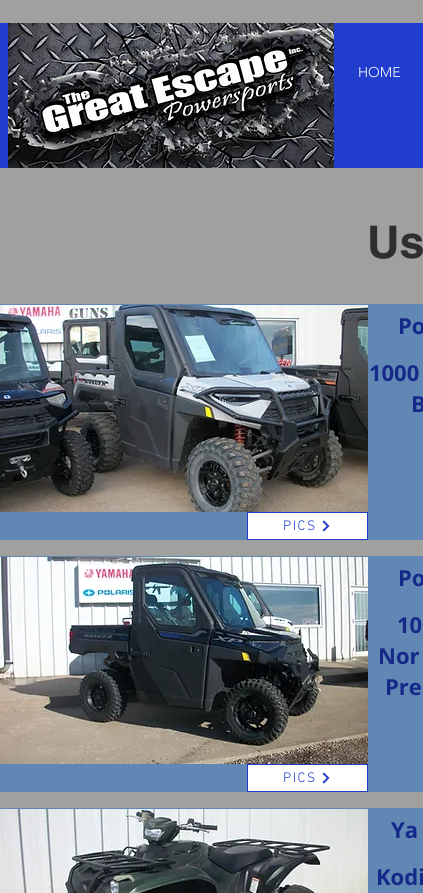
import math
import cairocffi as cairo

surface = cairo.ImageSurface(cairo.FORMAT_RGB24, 423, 893)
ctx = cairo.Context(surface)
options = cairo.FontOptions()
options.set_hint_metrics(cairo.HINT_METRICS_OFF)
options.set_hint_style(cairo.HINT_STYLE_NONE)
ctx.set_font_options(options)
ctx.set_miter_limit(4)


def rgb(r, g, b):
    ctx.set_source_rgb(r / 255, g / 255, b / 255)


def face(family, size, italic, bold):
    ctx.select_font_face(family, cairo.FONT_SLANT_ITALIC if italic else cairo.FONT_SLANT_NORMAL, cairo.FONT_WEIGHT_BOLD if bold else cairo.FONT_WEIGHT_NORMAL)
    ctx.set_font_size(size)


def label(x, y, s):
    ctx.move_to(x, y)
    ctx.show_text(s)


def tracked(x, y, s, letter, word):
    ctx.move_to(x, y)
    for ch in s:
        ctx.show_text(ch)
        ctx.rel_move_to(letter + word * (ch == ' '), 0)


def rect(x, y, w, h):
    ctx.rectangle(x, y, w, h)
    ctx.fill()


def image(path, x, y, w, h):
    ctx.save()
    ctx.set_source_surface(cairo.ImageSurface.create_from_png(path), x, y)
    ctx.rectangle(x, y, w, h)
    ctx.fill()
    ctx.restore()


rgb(160, 160, 159)
ctx.paint()
rgb(32, 61, 206)
rect(0, 23, 423, 145)
image('image0.png', 8, 23, 326, 145)
face('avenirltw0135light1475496 Light', 14, 0, 0)
rgb(255, 255, 255)
label(358, 77, 'HOME')
face('helvetica', 45, 0, 1)
rgb(47, 46, 46)
label(367, 258, 'Us')
rgb(97, 135, 181)
rect(0, 304, 423, 236)
image('image1.png', 0, 305, 368, 207)
face('Open Sans', 22, 0, 1)
rgb(21, 41, 137)
label(398, 334, 'Po')
label(369, 381, '1000')
label(411, 412, 'B')
rgb(255, 255, 255)
ctx.rectangle(247.5, 512.5, 120, 27)
ctx.fill_preserve()
rgb(32, 61, 206)
ctx.set_line_width(1)
ctx.stroke()
face('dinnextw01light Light', 14, 0, 0)
tracked(283, 530, 'PICS', 1.5, 0)
image('image2.png', 322, 520, 8, 12)
rgb(97, 135, 181)
rect(0, 556, 423, 236)
image('image3.png', 0, 557, 368, 207)
face('Open Sans', 22, 0, 1)
rgb(21, 41, 137)
label(398, 586, 'Po')
label(397, 633, '10')
label(378, 664, 'Nor')
label(385, 695, 'Pre')
rgb(255, 255, 255)
ctx.rectangle(247.5, 764.5, 120, 27)
ctx.fill_preserve()
rgb(32, 61, 206)
ctx.stroke()
face('dinnextw01light Light', 14, 0, 0)
tracked(283, 782, 'PICS', 1.5, 0)
image('image2.png', 322, 772, 8, 12)
rgb(97, 135, 181)
rect(0, 808, 423, 85)
image('image4.png', 0, 809, 368, 84)
face('Open Sans', 22, 0, 1)
rgb(21, 41, 137)
label(391, 838, 'Ya')
label(376, 885, 'Kodi')
surface.write_to_png('render.png')
